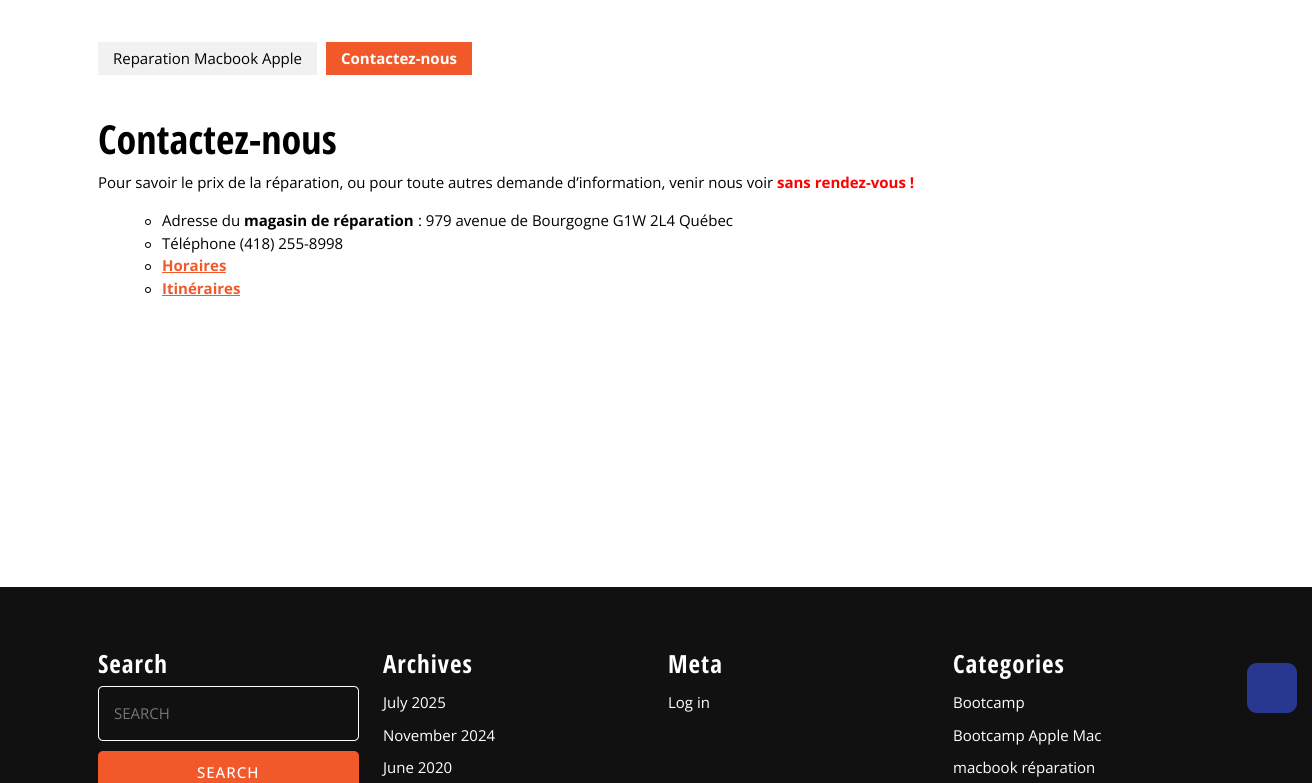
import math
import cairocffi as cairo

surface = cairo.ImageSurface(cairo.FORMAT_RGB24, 1312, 783)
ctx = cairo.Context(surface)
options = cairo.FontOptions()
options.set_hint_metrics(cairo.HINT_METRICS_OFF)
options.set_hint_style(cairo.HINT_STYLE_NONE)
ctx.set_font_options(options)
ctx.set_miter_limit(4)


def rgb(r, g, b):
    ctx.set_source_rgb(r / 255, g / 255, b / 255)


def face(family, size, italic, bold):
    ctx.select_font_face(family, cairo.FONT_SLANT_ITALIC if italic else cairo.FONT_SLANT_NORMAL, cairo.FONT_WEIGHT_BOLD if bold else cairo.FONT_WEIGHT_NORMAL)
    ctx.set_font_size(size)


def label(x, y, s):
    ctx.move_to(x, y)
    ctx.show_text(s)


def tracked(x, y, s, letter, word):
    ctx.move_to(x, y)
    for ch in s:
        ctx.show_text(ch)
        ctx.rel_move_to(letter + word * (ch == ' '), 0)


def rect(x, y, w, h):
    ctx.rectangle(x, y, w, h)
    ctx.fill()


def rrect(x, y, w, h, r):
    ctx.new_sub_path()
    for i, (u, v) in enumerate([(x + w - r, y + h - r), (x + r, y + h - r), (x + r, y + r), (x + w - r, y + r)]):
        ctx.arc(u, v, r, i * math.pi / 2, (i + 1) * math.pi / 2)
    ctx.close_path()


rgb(255, 255, 255)
ctx.paint()
rgb(241, 241, 241)
rect(98, 42, 219, 33)
face('Open Sans', 15, 0, 0)
rgb(0, 0, 0)
label(113, 64, 'Reparation Macbook Apple')
rgb(241, 89, 42)
rect(326, 42, 146, 33)
face('Open Sans', 15, 0, 1)
rgb(255, 255, 255)
label(341, 64, 'Contactez-nous')
face('Open Sans Condensed', 40, 0, 1)
rgb(0, 0, 0)
label(98, 154, 'Contactez-nous')
face('Open Sans', 15, 0, 0)
label(98, 188, 'Pour savoir le prix de la réparation, ou pour toute autres demande d’information, venir nous voir')
face('Open Sans', 15, 0, 1)
rgb(255, 0, 0)
label(777, 188, 'sans rendez-vous !')
ctx.new_path()
ctx.arc(148, 222, 2.5, 0, 2 * math.pi)
rgb(0, 0, 0)
ctx.set_line_width(1)
ctx.stroke()
face('Open Sans', 15, 0, 0)
label(162, 226, 'Adresse du')
face('Open Sans', 15, 0, 1)
label(244, 226, 'magasin de réparation')
face('Open Sans', 15, 0, 0)
label(418, 226, ': 979 avenue de Bourgogne G1W 2L4 Québec')
ctx.new_path()
ctx.arc(148, 245, 2.5, 0, 2 * math.pi)
ctx.stroke()
label(162, 249, 'Téléphone (418) 255-8998')
ctx.new_path()
ctx.arc(148, 267, 2.5, 0, 2 * math.pi)
ctx.stroke()
face('Open Sans', 15, 0, 1)
rgb(241, 89, 42)
label(162, 271, 'Horaires')
rect(162, 272, 64, 1)
ctx.new_path()
ctx.arc(148, 290, 2.5, 0, 2 * math.pi)
rgb(0, 0, 0)
ctx.stroke()
rgb(241, 89, 42)
label(162, 294, 'Itinéraires')
rect(162, 295, 78, 1)
rgb(17, 17, 17)
rect(0, 587, 1312, 196)
face('Open Sans Condensed', 25, 0, 1)
rgb(255, 255, 255)
tracked(98, 673, 'Search', 1, 0)
rrect(98.5, 686.5, 260, 54, 4.5)
ctx.stroke()
face('Open Sans', 15, 0, 0)
rgb(117, 117, 117)
label(114, 719, 'SEARCH')
rgb(241, 89, 42)
rrect(98, 751, 261, 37, 5)
ctx.fill()
face('Open Sans Medium', 15, 0, 0)
rgb(255, 255, 255)
tracked(197, 778, 'SEARCH', 1, 0)
face('Open Sans Condensed', 25, 0, 1)
tracked(383, 673, 'Archives', 1, 0)
face('Open Sans', 15, 0, 0)
label(383, 708, 'July 2025')
label(383, 741, 'November 2024')
label(383, 773, 'June 2020')
face('Open Sans Condensed', 25, 0, 1)
tracked(668, 673, 'Meta', 1, 0)
face('Open Sans', 15, 0, 0)
label(668, 708, 'Log in')
face('Open Sans Condensed', 25, 0, 1)
tracked(953, 673, 'Categories', 1, 0)
face('Open Sans', 15, 0, 0)
label(953, 708, 'Bootcamp')
label(953, 741, 'Bootcamp Apple Mac')
label(953, 773, 'macbook réparation')
rgb(40, 56, 145)
rrect(1247, 663, 50, 50, 10)
ctx.fill()
surface.write_to_png('render.png')
